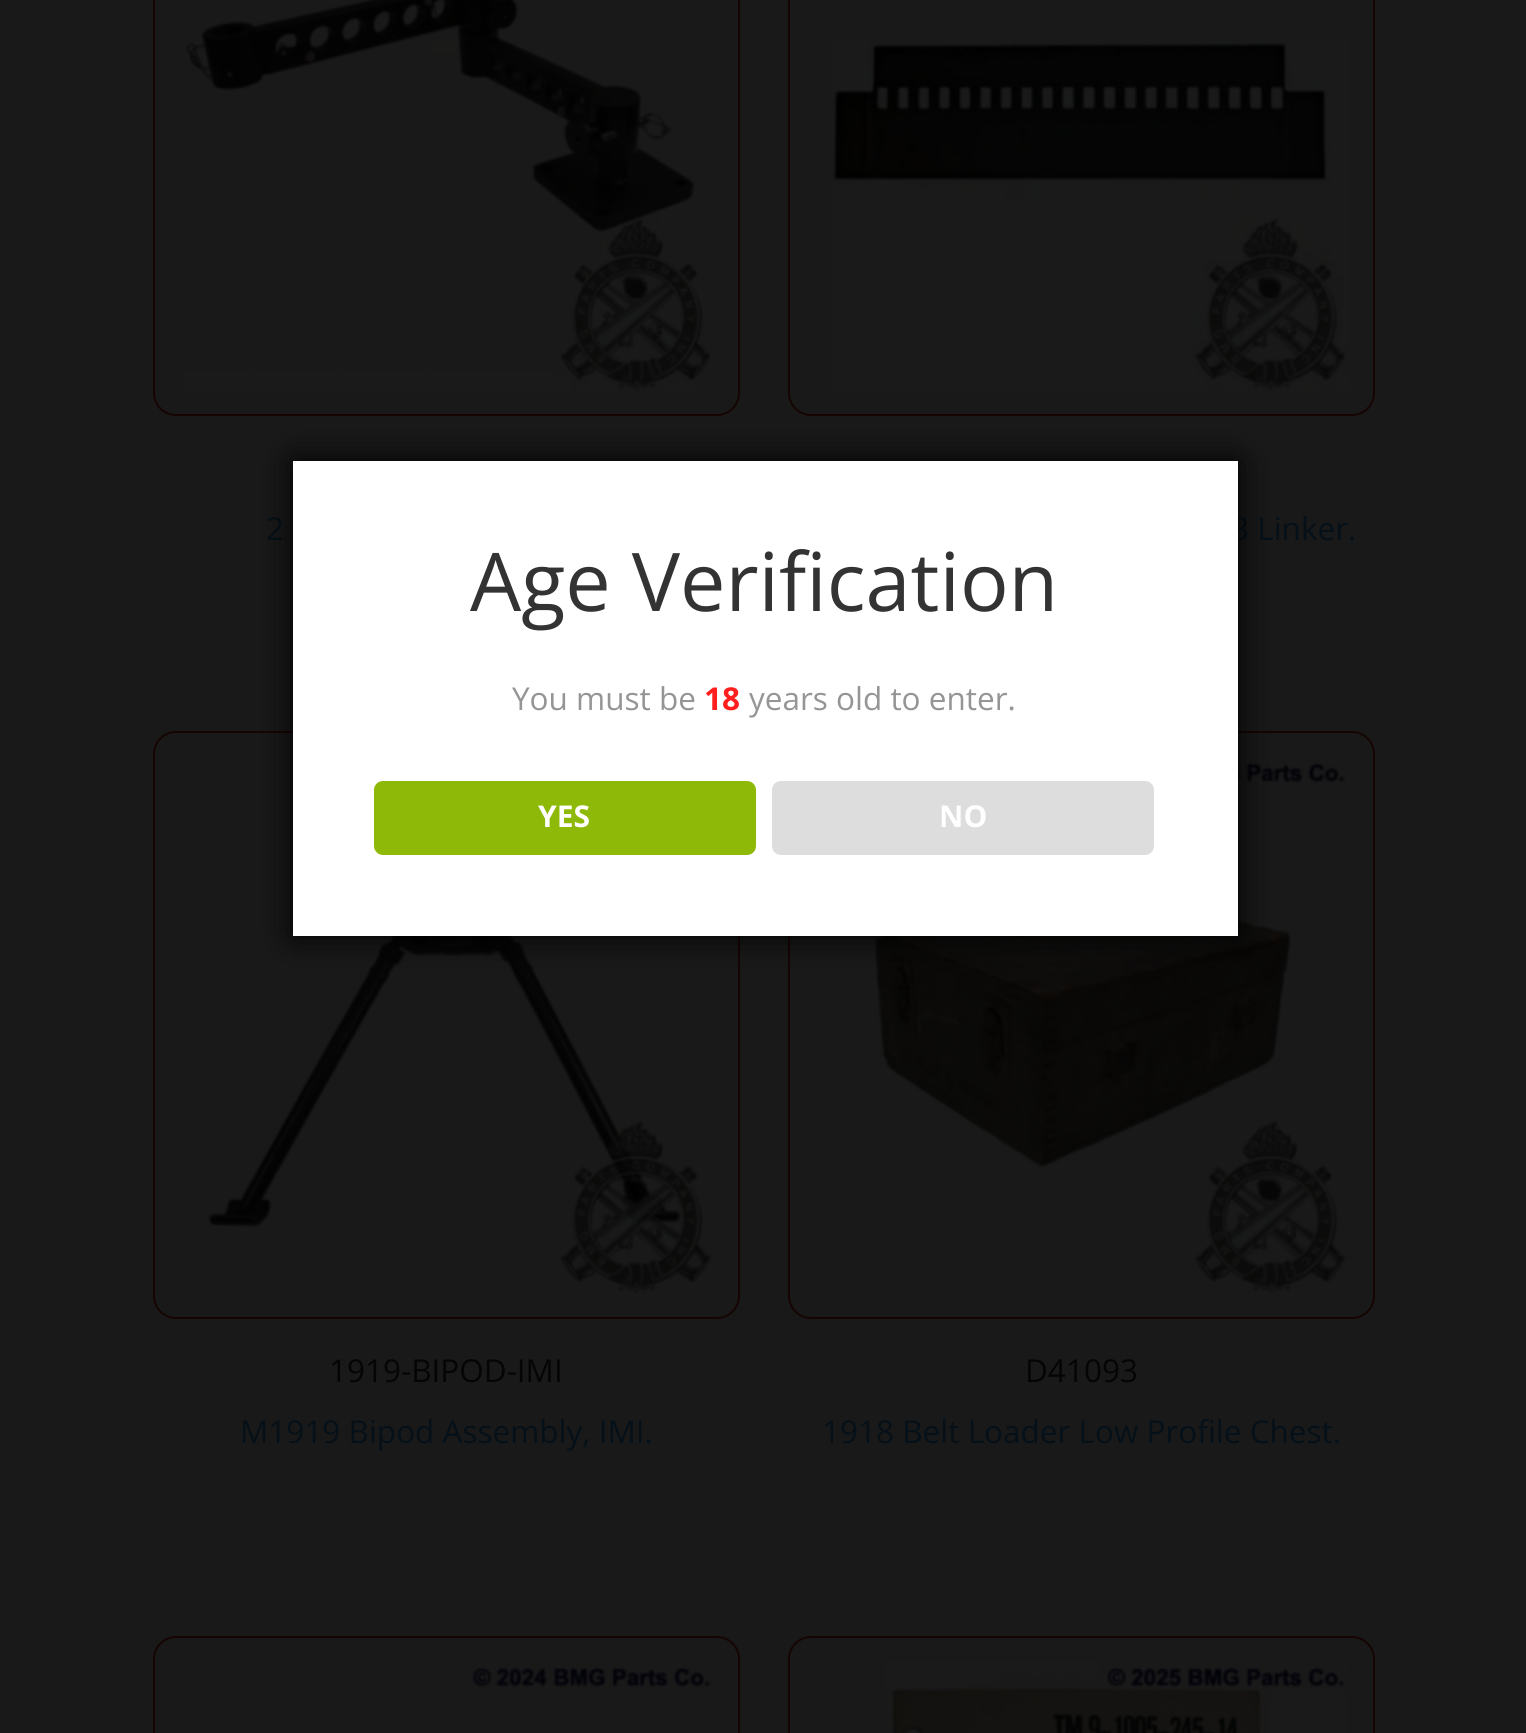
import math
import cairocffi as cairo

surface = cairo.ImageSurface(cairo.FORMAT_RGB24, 1526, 1733)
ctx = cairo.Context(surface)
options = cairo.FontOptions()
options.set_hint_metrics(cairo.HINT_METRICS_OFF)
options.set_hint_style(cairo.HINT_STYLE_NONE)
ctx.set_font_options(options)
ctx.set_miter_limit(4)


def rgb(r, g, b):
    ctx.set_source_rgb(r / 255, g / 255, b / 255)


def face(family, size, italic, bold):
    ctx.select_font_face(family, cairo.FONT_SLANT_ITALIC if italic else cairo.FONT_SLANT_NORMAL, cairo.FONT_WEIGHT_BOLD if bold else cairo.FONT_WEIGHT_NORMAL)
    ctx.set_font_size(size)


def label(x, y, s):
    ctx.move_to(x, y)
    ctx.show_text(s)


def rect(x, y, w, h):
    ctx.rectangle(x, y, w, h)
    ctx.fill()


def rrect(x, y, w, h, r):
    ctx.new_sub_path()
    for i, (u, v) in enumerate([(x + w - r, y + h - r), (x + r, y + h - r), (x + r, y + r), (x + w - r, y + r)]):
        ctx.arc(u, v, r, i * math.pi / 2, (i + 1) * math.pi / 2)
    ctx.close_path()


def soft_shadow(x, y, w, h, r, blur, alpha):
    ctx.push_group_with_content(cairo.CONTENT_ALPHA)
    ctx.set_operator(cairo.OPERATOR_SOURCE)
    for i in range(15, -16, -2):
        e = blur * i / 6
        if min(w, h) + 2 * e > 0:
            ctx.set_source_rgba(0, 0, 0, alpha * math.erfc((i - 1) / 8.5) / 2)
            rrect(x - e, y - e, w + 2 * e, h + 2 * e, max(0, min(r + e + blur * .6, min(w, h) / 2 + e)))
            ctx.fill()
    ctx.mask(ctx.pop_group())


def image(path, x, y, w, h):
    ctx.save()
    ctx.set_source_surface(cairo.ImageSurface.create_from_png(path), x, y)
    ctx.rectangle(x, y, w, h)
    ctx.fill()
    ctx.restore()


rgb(25, 25, 25)
ctx.paint()
rrect(154, -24, 585, 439, 22)
rgb(22, 4, 3)
ctx.stroke()
image('image0.png', 184, 0, 530, 392)
face('Open Sans', 31.5, 0, 0)
rgb(5, 16, 24)
label(266, 540, '2')
rrect(789, -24, 585, 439, 22)
rgb(22, 4, 3)
ctx.stroke()
image('image1.png', 832, 39, 518, 353)
rgb(5, 16, 24)
label(1231, 540, '3 Linker.')
rrect(154, 732, 585, 586, 22)
rgb(22, 4, 3)
ctx.stroke()
image('image2.png', 206, 755, 510, 539)
rgb(5, 5, 5)
label(329, 1382, '1919-BIPOD-IMI')
rgb(5, 16, 24)
label(240, 1443, 'M1919 Bipod Assembly, IMI.')
rrect(789, 732, 585, 586, 22)
rgb(22, 4, 3)
ctx.stroke()
image('image3.png', 869, 755, 481, 539)
rgb(5, 5, 5)
label(1025, 1382, 'D41093')
rgb(5, 16, 24)
label(822, 1443, '1918 Belt Loader Low Profile Chest.')
rrect(154, 1637, 585, 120, 22)
rgb(22, 4, 3)
ctx.stroke()
image('image4.png', 445, 1660, 270, 73)
rrect(789, 1637, 585, 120, 22)
ctx.stroke()
image('image5.png', 884, 1660, 462, 73)
rgb(0, 0, 0)
soft_shadow(293, 461, 945, 475, 0, 17, 1)
rgb(255, 255, 255)
rect(293, 461, 945, 475)
face('Open Sans', 81, 0, 0)
rgb(51, 51, 51)
label(470, 611, 'Age Verification')
face('Open Sans', 31.5, 0, 0)
rgb(149, 149, 149)
label(512, 710, 'You must be')
face('Open Sans', 31.5, 0, 1)
rgb(255, 31, 31)
label(704, 710, '18')
face('Open Sans', 31.5, 0, 0)
rgb(149, 149, 149)
label(749, 710, 'years old to enter.')
rgb(142, 185, 8)
rrect(374, 781, 382, 74, 9)
ctx.fill()
face('Open Sans', 30, 0, 1)
rgb(255, 255, 255)
label(538, 827, 'YES')
rgb(221, 221, 221)
rrect(772, 781, 382, 74, 9)
ctx.fill()
rgb(255, 255, 255)
label(939, 827, 'NO')
surface.write_to_png('render.png')
